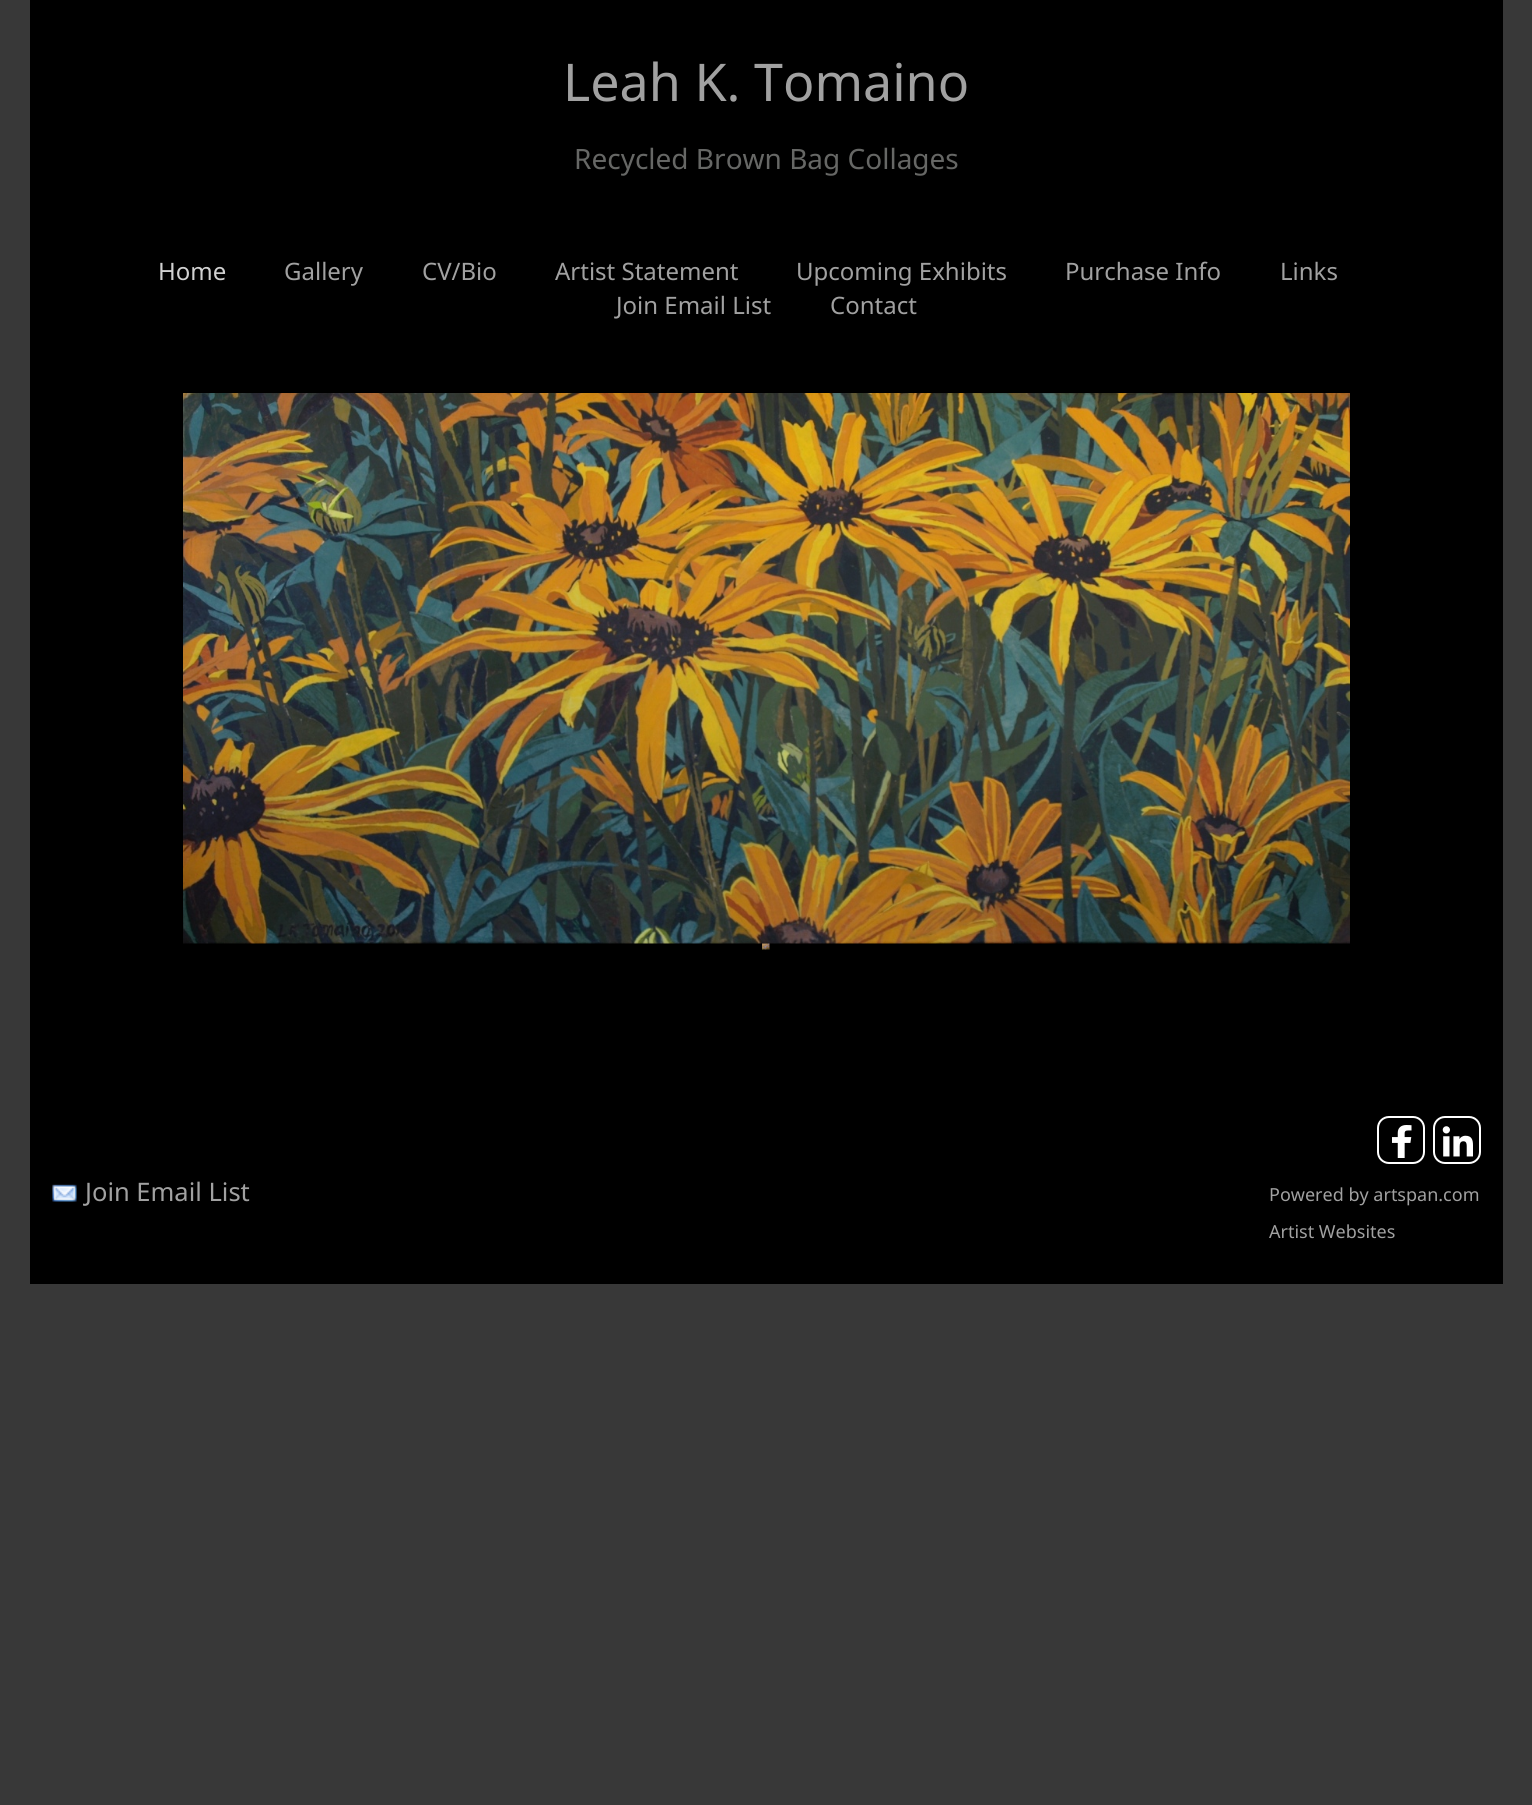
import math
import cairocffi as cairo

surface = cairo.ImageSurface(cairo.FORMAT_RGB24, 1532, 1805)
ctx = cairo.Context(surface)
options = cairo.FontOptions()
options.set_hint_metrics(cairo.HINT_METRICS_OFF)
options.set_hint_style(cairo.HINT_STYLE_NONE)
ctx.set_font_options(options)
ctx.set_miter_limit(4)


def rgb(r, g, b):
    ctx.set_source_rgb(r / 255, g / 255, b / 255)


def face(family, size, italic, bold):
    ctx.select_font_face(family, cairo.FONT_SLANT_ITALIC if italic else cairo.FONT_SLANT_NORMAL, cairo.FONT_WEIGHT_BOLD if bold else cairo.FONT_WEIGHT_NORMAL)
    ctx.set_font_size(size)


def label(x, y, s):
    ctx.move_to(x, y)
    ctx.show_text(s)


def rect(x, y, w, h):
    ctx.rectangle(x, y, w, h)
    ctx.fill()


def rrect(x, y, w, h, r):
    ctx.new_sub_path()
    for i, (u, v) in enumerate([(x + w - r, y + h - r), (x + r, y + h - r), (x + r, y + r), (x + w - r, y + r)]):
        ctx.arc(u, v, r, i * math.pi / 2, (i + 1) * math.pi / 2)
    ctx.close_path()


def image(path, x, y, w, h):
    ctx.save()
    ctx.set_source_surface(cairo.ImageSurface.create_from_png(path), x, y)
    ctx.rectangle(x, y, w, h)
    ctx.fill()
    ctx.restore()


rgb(56, 56, 56)
ctx.paint()
rgb(0, 0, 0)
rect(30, 0, 1473, 1284)
face('Noto Sans', 52, 0, 0)
rgb(161, 161, 161)
label(563, 101, 'Leah K. Tomaino')
face('Noto Sans', 28, 0, 0)
rgb(102, 103, 101)
label(574, 169, 'Recycled Brown Bag Collages')
face('Noto Sans', 24, 0, 0)
rgb(209, 209, 209)
label(158, 280, 'Home')
rgb(161, 161, 161)
label(284, 280, 'Gallery')
label(422, 280, 'CV/Bio')
label(555, 280, 'Artist Statement')
label(796, 280, 'Upcoming Exhibits')
label(1065, 280, 'Purchase Info')
label(1280, 280, 'Links')
label(616, 314, 'Join Email List')
label(830, 314, 'Contact')
image('image0.png', 183, 393, 1167, 551)
image('image1.png', 762, 943, 8, 7)
rrect(1378, 1117, 46, 46, 11)
rgb(255, 255, 255)
ctx.stroke()
image('image2.png', 1392, 1125, 20, 33)
rrect(1434, 1117, 46, 46, 11)
ctx.stroke()
image('image3.png', 1442, 1126, 31, 31)
image('image4.png', 52, 1184, 25, 18)
face('Noto Sans', 25.5, 0, 0)
rgb(161, 161, 161)
label(85, 1201, 'Join Email List')
face('Noto Sans', 18, 0, 0)
label(1269, 1201, 'Powered by artspan.com')
label(1269, 1238, 'Artist Websites')
surface.write_to_png('render.png')
